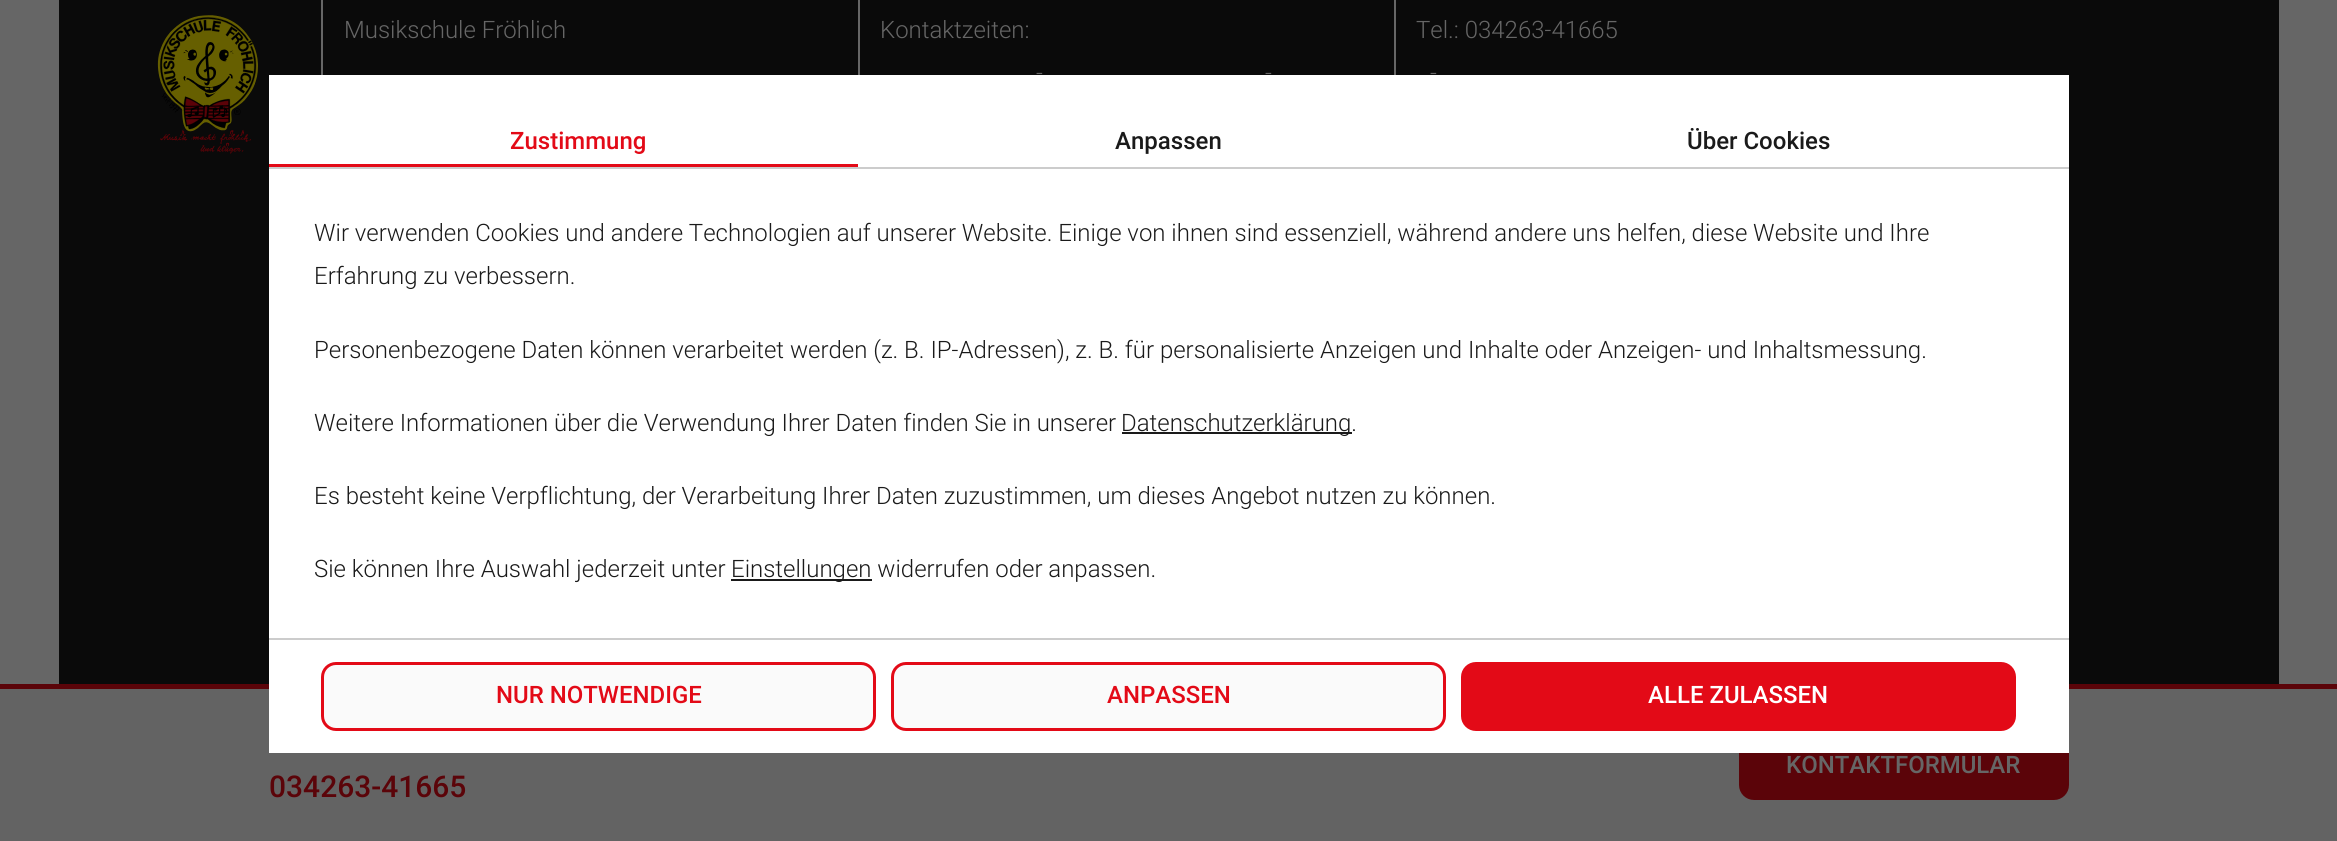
import math
import cairocffi as cairo

surface = cairo.ImageSurface(cairo.FORMAT_RGB24, 2337, 841)
ctx = cairo.Context(surface)
options = cairo.FontOptions()
options.set_hint_metrics(cairo.HINT_METRICS_OFF)
options.set_hint_style(cairo.HINT_STYLE_NONE)
ctx.set_font_options(options)
ctx.set_miter_limit(4)


def rgb(r, g, b):
    ctx.set_source_rgb(r / 255, g / 255, b / 255)


def face(family, size, italic, bold):
    ctx.select_font_face(family, cairo.FONT_SLANT_ITALIC if italic else cairo.FONT_SLANT_NORMAL, cairo.FONT_WEIGHT_BOLD if bold else cairo.FONT_WEIGHT_NORMAL)
    ctx.set_font_size(size)


def label(x, y, s):
    ctx.move_to(x, y)
    ctx.show_text(s)


def rect(x, y, w, h):
    ctx.rectangle(x, y, w, h)
    ctx.fill()


def rrect(x, y, w, h, r):
    ctx.new_sub_path()
    for i, (u, v) in enumerate([(x + w - r, y + h - r), (x + r, y + h - r), (x + r, y + r), (x + w - r, y + r)]):
        ctx.arc(u, v, r, i * math.pi / 2, (i + 1) * math.pi / 2)
    ctx.close_path()


def image(path, x, y, w, h):
    ctx.save()
    ctx.set_source_surface(cairo.ImageSurface.create_from_png(path), x, y)
    ctx.rectangle(x, y, w, h)
    ctx.fill()
    ctx.restore()


rgb(102, 102, 102)
ctx.paint()
rgb(10, 10, 10)
rect(59, 0, 2220, 684)
image('image0.png', 157, 15, 101, 139)
rgb(102, 102, 102)
rect(321, 0, 2, 75)
face('Roboto Light', 24, 0, 0)
label(344, 38, 'Musikschule Fröhlich')
rect(858, 0, 2, 75)
label(880, 38, 'Kontaktzeiten:')
label(1036, 81, '-')
label(1265, 81, '-')
rect(1394, 0, 2, 75)
label(1416, 38, 'Tel.: 034263-41665')
label(1430, 81, '-')
rgb(99, 99, 99)
rect(0, 689, 2337, 152)
rgb(91, 4, 9)
rect(0, 684, 2337, 5)
rrect(1740.5, 732.5, 327, 66, 13.5)
ctx.fill_preserve()
ctx.set_line_width(3)
ctx.stroke()
face('Roboto Medium', 24, 0, 0)
rgb(102, 102, 102)
label(1786, 773, 'KONTAKTFORMULAR')
face('Roboto Medium', 30, 0, 0)
rgb(91, 4, 9)
label(269, 797, '034263-41665')
rgb(255, 255, 255)
rect(269, 75, 1800, 678)
rgb(204, 204, 204)
rect(269, 167, 1800, 2)
rgb(227, 10, 23)
rect(269, 164, 589, 3)
face('Roboto Medium', 24, 0, 0)
label(510, 149, 'Zustimmung')
rgb(26, 26, 26)
label(1115, 149, 'Anpassen')
label(1687, 149, 'Über Cookies')
face('Roboto Light', 24, 0, 0)
label(314, 241, 'Wir verwenden Cookies und andere Technologien auf unserer Website. Einige von ihnen sind essenziell, während andere uns helfen, diese Website und Ihre')
label(314, 284, 'Erfahrung zu verbessern.')
label(314, 358, 'Personenbezogene Daten können verarbeitet werden (z. B. IP-Adressen), z. B. für personalisierte Anzeigen und Inhalte oder Anzeigen- und Inhaltsmessung.')
label(314, 431, 'Weitere Informationen über die Verwendung Ihrer Daten finden Sie in unserer')
rect(1122, 432, 230, 2)
label(1121, 431, 'Datenschutzerklärung.')
label(314, 504, 'Es besteht keine Verpflichtung, der Verarbeitung Ihrer Daten zuzustimmen, um dieses Angebot nutzen zu können.')
label(314, 577, 'Sie können Ihre Auswahl jederzeit unter')
rect(731, 579, 141, 2)
label(731, 577, 'Einstellungen widerrufen oder anpassen.')
rgb(204, 204, 204)
rect(269, 638, 1800, 2)
rgb(250, 250, 250)
rrect(322.5, 663.5, 552, 66, 13.5)
ctx.fill_preserve()
rgb(227, 10, 23)
ctx.stroke()
face('Roboto Medium', 24, 0, 0)
label(496, 703, 'NUR NOTWENDIGE')
rgb(250, 250, 250)
rrect(892.5, 663.5, 552, 66, 13.5)
ctx.fill_preserve()
rgb(227, 10, 23)
ctx.stroke()
label(1107, 703, 'ANPASSEN')
rrect(1462.5, 663.5, 552, 66, 13.5)
ctx.fill_preserve()
ctx.stroke()
rgb(255, 255, 255)
label(1648, 703, 'ALLE ZULASSEN')
surface.write_to_png('render.png')
